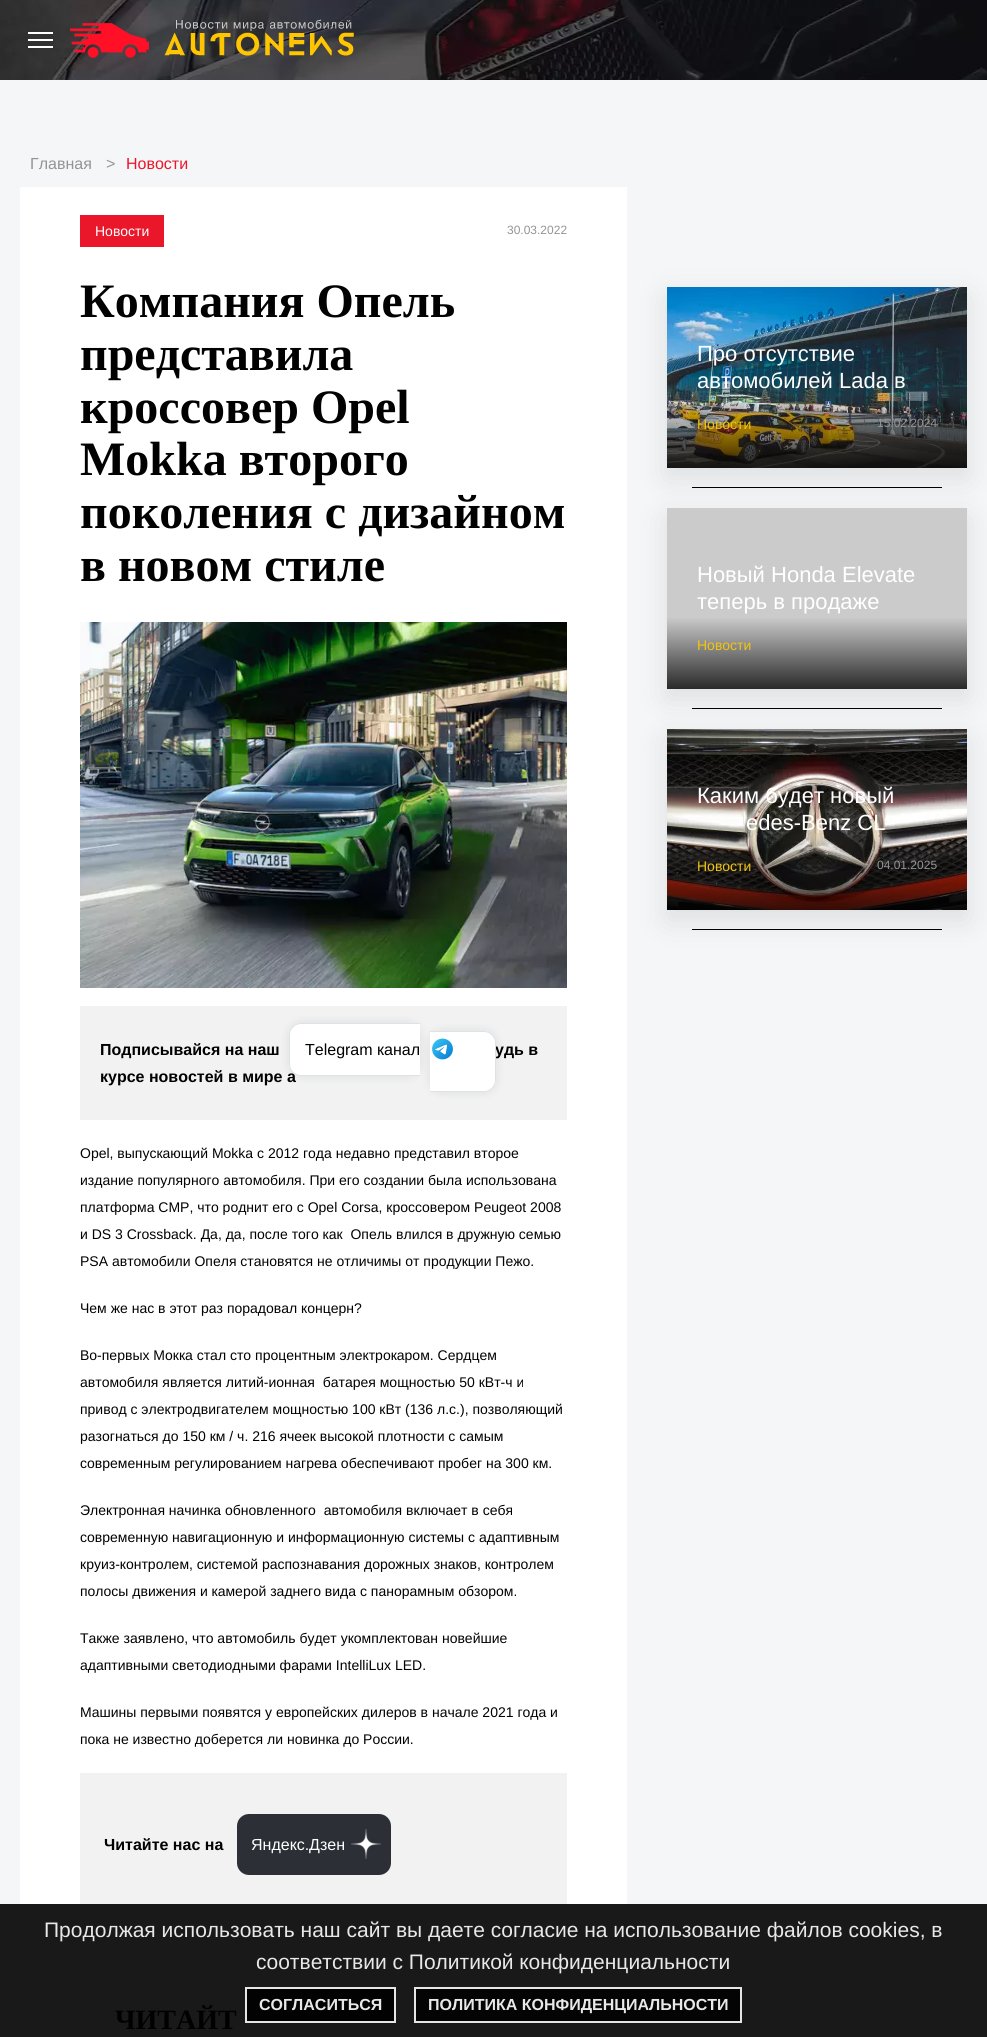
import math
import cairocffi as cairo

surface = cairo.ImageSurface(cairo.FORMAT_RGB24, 987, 2037)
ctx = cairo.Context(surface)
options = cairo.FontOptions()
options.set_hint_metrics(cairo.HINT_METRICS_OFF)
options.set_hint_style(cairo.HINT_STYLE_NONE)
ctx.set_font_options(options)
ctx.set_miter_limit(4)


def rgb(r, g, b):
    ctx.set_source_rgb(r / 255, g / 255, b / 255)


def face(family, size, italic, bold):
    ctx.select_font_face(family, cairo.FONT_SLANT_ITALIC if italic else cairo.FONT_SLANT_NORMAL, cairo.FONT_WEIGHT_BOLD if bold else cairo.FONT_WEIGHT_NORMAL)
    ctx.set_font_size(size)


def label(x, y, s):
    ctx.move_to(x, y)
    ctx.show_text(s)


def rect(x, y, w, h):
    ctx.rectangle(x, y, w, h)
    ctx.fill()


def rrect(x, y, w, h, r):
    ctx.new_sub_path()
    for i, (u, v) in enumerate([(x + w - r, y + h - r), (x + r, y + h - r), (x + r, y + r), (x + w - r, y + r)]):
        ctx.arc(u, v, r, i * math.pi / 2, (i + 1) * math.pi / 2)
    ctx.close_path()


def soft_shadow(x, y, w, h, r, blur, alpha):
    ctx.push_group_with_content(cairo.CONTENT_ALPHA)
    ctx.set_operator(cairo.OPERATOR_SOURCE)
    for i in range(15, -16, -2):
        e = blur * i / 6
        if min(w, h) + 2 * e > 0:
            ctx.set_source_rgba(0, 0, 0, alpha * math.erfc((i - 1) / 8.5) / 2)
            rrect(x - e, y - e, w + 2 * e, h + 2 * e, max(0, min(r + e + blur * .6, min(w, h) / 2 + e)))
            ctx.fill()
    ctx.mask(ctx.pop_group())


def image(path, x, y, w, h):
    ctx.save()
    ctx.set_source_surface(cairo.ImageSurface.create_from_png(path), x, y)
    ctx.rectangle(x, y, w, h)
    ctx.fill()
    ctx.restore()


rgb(245, 246, 248)
ctx.paint()
rgb(25, 25, 26)
rect(0, 1904, 987, 133)
image('image0.png', 0, 0, 987, 80)
rgb(255, 255, 255)
rect(28, 39, 25, 2)
rect(28, 32, 25, 2)
rect(28, 46, 25, 2)
image('image1.png', 70, 1, 284, 70)
face('Liberation Sans', 16, 0, 0)
rgb(148, 148, 148)
label(30, 169, 'Главная')
label(106, 169, '>')
rgb(234, 23, 42)
label(126, 169, 'Новости')
rgb(255, 255, 255)
rect(20, 187, 607, 1717)
rgb(234, 23, 42)
rect(80, 215, 84, 32)
face('Liberation Sans', 14, 0, 0)
rgb(255, 255, 255)
label(95, 236, 'Новости')
face('Liberation Sans', 12, 0, 0)
rgb(148, 148, 148)
label(507, 234, '30.03.2022')
face('Liberation Serif', 48, 0, 1)
rgb(1, 1, 1)
label(80, 317, 'Компания Опель')
label(80, 370, 'представила')
label(80, 423, 'кроссовер Opel')
label(80, 475, 'Mokka второго')
label(80, 528, 'поколения с дизайном')
label(80, 581, 'в новом стиле')
image('image2.png', 80, 622, 487, 366)
rgb(242, 242, 242)
rect(80, 1006, 487, 114)
face('Liberation Sans', 16, 0, 1)
rgb(1, 1, 1)
label(100, 1055, 'Подписывайся на наш')
rgb(34, 60, 80)
soft_shadow(288, 1022, 133, 55, 13, 4, 0.1)
rgb(1, 1, 1)
label(100, 1082, 'курсе новостей в мире а')
rgb(255, 255, 255)
ctx.new_path()
ctx.move_to(301, 1023)
ctx.line_to(420, 1023)
ctx.line_to(420, 1076)
ctx.line_to(301, 1076)
ctx.curve_to(294.5, 1076, 289, 1070.5, 289, 1064)
ctx.line_to(289, 1035)
ctx.curve_to(289, 1028.5, 294.5, 1023, 301, 1023)
ctx.close_path()
ctx.fill()
rgb(223, 226, 229)
ctx.set_fill_rule(cairo.FILL_RULE_EVEN_ODD)
ctx.new_path()
ctx.move_to(301, 1023)
ctx.line_to(420, 1023)
ctx.line_to(420, 1076)
ctx.line_to(301, 1076)
ctx.curve_to(294, 1076, 289, 1071, 289, 1064)
ctx.line_to(289, 1035)
ctx.curve_to(289, 1028, 294, 1023, 301, 1023)
ctx.close_path()
ctx.move_to(301, 1024)
ctx.line_to(420, 1024)
ctx.line_to(420, 1075)
ctx.line_to(301, 1075)
ctx.curve_to(295, 1075, 290, 1070, 290, 1064)
ctx.line_to(290, 1035)
ctx.curve_to(290, 1029, 295, 1024, 301, 1024)
ctx.close_path()
ctx.fill()
rgb(34, 60, 80)
soft_shadow(429, 1030, 68, 63, 13, 4, 0.1)
rgb(1, 1, 1)
label(495, 1055, 'удь в')
rgb(255, 255, 255)
ctx.new_path()
ctx.move_to(430, 1031)
ctx.line_to(484, 1031)
ctx.curve_to(490.5, 1031, 496, 1036.5, 496, 1043)
ctx.line_to(496, 1080)
ctx.curve_to(496, 1086.5, 490.5, 1092, 484, 1092)
ctx.line_to(430, 1092)
ctx.close_path()
ctx.fill()
rgb(223, 226, 229)
ctx.new_path()
ctx.move_to(430, 1031)
ctx.line_to(484, 1031)
ctx.curve_to(491, 1031, 496, 1036, 496, 1043)
ctx.line_to(496, 1080)
ctx.curve_to(496, 1087, 491, 1092, 484, 1092)
ctx.line_to(430, 1092)
ctx.close_path()
ctx.move_to(430, 1032)
ctx.line_to(484, 1032)
ctx.curve_to(490, 1032, 495, 1037, 495, 1043)
ctx.line_to(495, 1080)
ctx.curve_to(495, 1086, 490, 1091, 484, 1091)
ctx.line_to(430, 1091)
ctx.close_path()
ctx.fill()
face('Liberation Sans', 16, 0, 0)
rgb(1, 1, 1)
label(305, 1055, 'Telegram канал')
image('image3.png', 432, 1038, 21, 22)
face('Liberation Sans', 14, 0, 0)
label(80, 1158, 'Opel, выпускающий Mokka с 2012 года недавно представил второе')
label(80, 1185, 'издание популярного автомобиля. При его создании была использована')
label(80, 1212, 'платформа CMP, что роднит его с Opel Corsa, кроссовером Peugeot 2008')
label(80, 1239, 'и DS 3 Crossback. Да, да, после того как  Опель влился в дружную семью')
label(80, 1266, 'PSA автомобили Опеля становятся не отличимы от продукции Пежо.')
label(80, 1313, 'Чем же нас в этот раз порадовал концерн?')
label(80, 1360, 'Во-первых Мокка стал сто процентным электрокаром. Сердцем')
label(80, 1387, 'автомобиля является литий-ионная  батарея мощностью 50 кВт-ч и')
label(80, 1414, 'привод с электродвигателем мощностью 100 кВт (136 л.с.), позволяющий')
label(80, 1441, 'разогнаться до 150 км / ч. 216 ячеек высокой плотности с самым')
label(80, 1468, 'современным регулированием нагрева обеспечивают пробег на 300 км.')
label(80, 1515, 'Электронная начинка обновленного  автомобиля включает в себя')
label(80, 1542, 'современную навигационную и информационную системы с адаптивным')
label(80, 1569, 'круиз-контролем, системой распознавания дорожных знаков, контролем')
label(80, 1596, 'полосы движения и камерой заднего вида с панорамным обзором.')
label(80, 1643, 'Также заявлено, что автомобиль будет укомплектован новейшие')
label(80, 1670, 'адаптивными светодиодными фарами IntelliLux LED.')
label(80, 1717, 'Машины первыми появятся у европейских дилеров в начале 2021 года и')
label(80, 1744, 'пока не известно доберется ли новинка до России.')
rgb(242, 242, 242)
rect(80, 1773, 487, 131)
face('Liberation Sans', 16, 0, 1)
rgb(1, 1, 1)
label(104, 1850, 'Читайте нас на')
rgb(44, 48, 54)
rrect(237, 1814, 154, 61, 12)
ctx.fill()
face('Liberation Sans', 16, 0, 0)
rgb(255, 255, 255)
label(251, 1850, 'Яндекс.Дзен')
image('image4.png', 351, 1829, 30, 30)
face('Liberation Serif', 28, 0, 1)
rgb(1, 1, 1)
label(115, 2029, 'ЧИТАЙТ')
rgb(0, 0, 0)
soft_shadow(667, 297, 300, 181, 0, 15, 0.1)
image('image5.png', 667, 287, 300, 181)
face('Liberation Sans', 22, 0, 0)
rgb(255, 255, 255)
label(697, 361, 'Про отсутствие')
label(697, 388, 'автомобилей Lada в')
face('Liberation Sans', 14, 0, 0)
rgb(241, 196, 15)
label(697, 429, 'Новости')
face('Liberation Sans', 12, 0, 0)
rgb(148, 148, 148)
label(877, 427, '15.02.2024')
rgb(1, 1, 1)
rect(692, 487, 250, 1)
rgb(0, 0, 0)
soft_shadow(667, 518, 300, 181, 0, 15, 0.1)
rgb(203, 203, 203)
rect(667, 508, 300, 109)
face('Liberation Sans', 22, 0, 0)
rgb(255, 255, 255)
label(697, 582, 'Новый Honda Elevate')
label(697, 609, 'теперь в продаже')
gradient = cairo.LinearGradient(817, 689, 817, 617)
gradient.add_color_stop_rgba(0, 0.161, 0.161, 0.161, 1)
gradient.add_color_stop_rgba(1, 0.796, 0.796, 0.796, 1)
ctx.set_source(gradient)
rect(667, 617, 300, 72)
face('Liberation Sans', 14, 0, 0)
rgb(241, 196, 15)
label(697, 650, 'Новости')
rgb(1, 1, 1)
rect(692, 708, 250, 1)
rgb(0, 0, 0)
soft_shadow(667, 739, 300, 181, 0, 15, 0.1)
image('image6.png', 667, 729, 300, 181)
face('Liberation Sans', 22, 0, 0)
rgb(255, 255, 255)
label(697, 803, 'Каким будет новый')
label(746, 830, 'edes-Benz CL')
face('Liberation Sans', 14, 0, 0)
rgb(241, 196, 15)
label(697, 871, 'Новости')
face('Liberation Sans', 12, 0, 0)
rgb(148, 148, 148)
label(877, 869, '04.01.2025')
rgb(1, 1, 1)
rect(692, 929, 250, 1)
face('Liberation Sans', 21, 0, 0)
rgb(232, 232, 232)
label(44, 1937, 'Продолжая использовать наш сайт вы даете согласие на использование файлов cookies, в')
label(256, 1969, 'соответствии с Политикой конфиденциальности')
ctx.set_source_rgba(0.004, 0.004, 0.004, 0.9)
rect(245, 1987, 151, 36)
ctx.rectangle(246, 1988, 149, 34)
ctx.set_source_rgba(1, 1, 1, 0.9)
ctx.stroke()
face('Liberation Sans', 16, 0, 1)
rgb(232, 232, 232)
label(259, 2010, 'СОГЛАСИТЬСЯ')
rgb(4, 4, 4)
ctx.rectangle(415, 1988, 326, 34)
ctx.fill_preserve()
rgb(230, 230, 230)
ctx.stroke()
rgb(232, 232, 232)
label(428, 2010, 'ПОЛИТИКА КОНФИДЕНЦИАЛЬНОСТИ')
surface.write_to_png('render.png')
